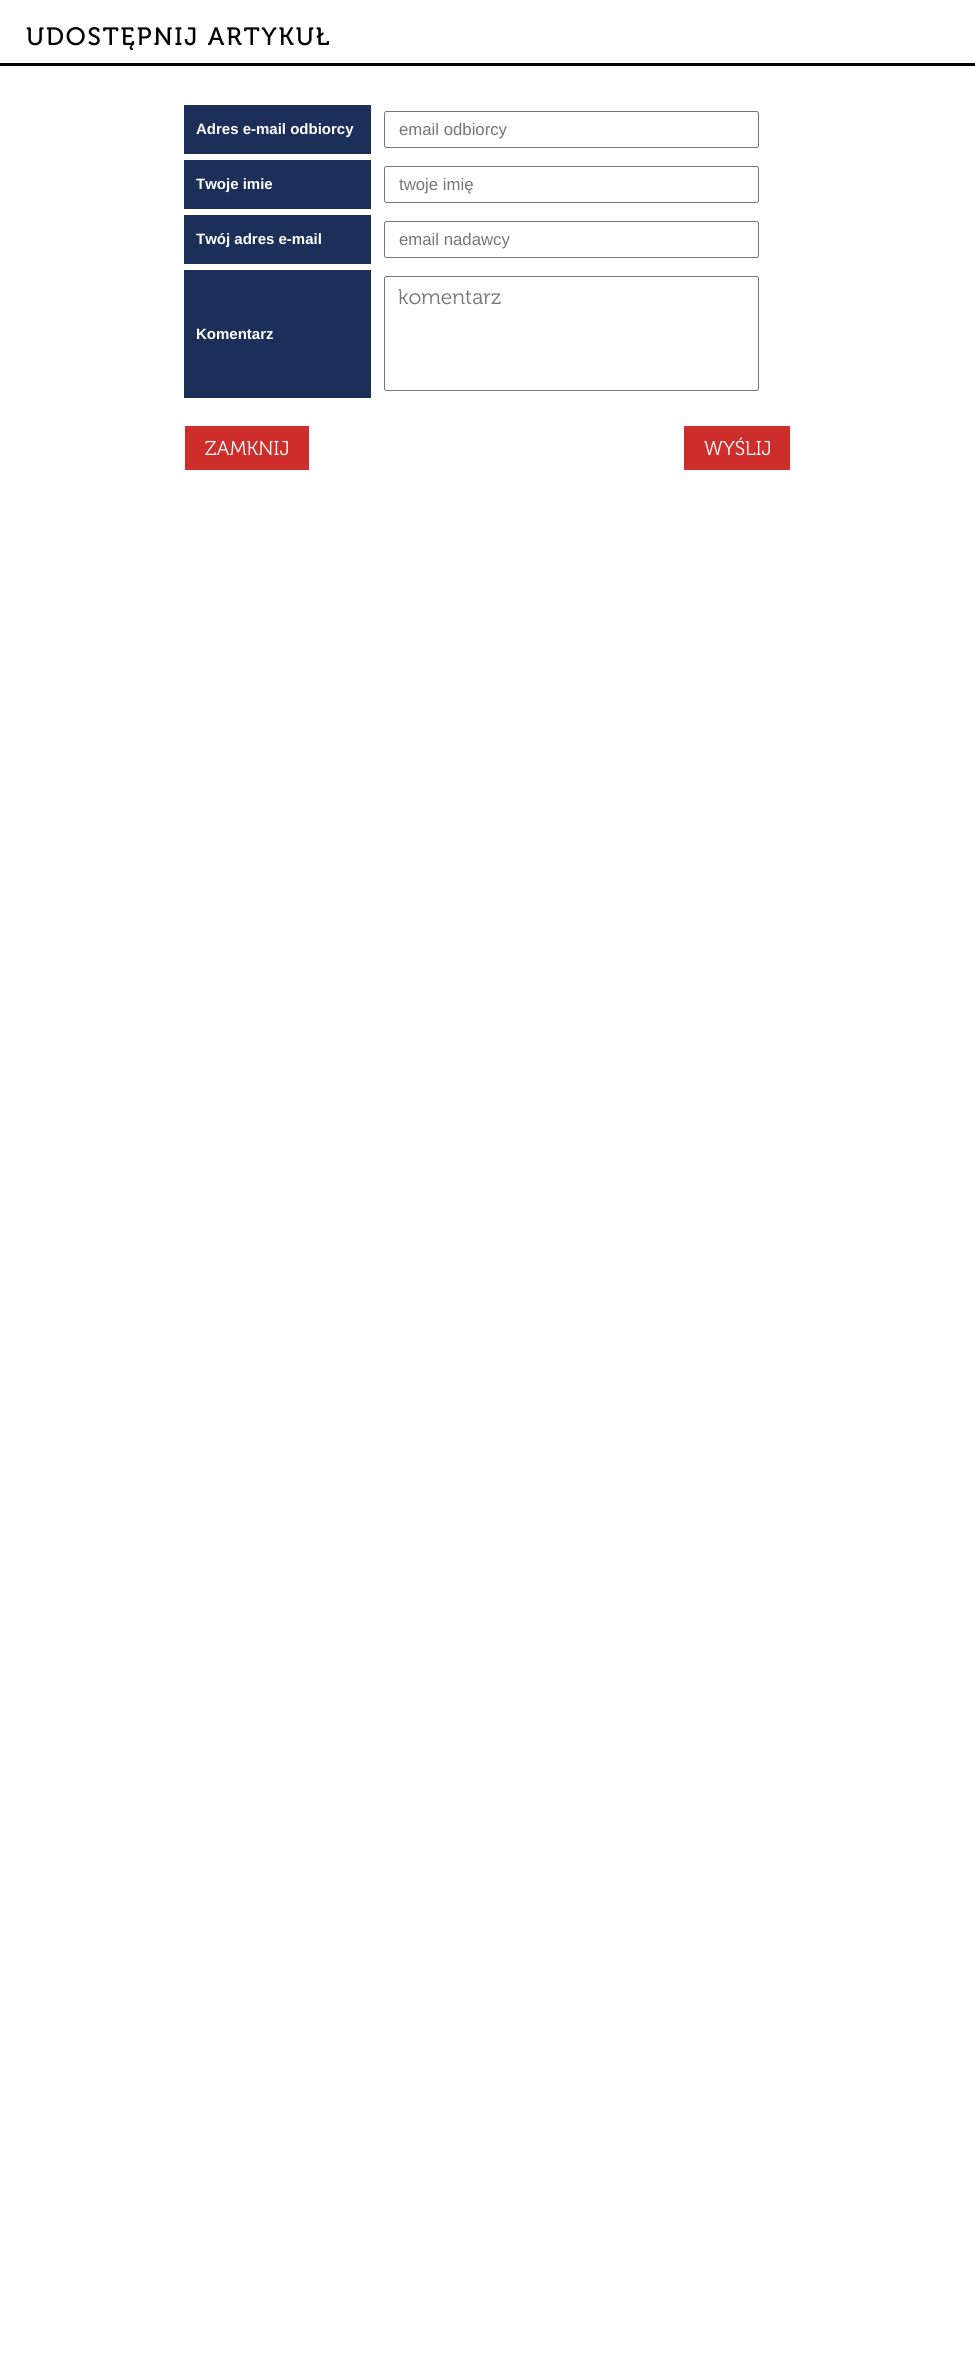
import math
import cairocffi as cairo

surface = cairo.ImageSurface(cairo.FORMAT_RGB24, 975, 2361)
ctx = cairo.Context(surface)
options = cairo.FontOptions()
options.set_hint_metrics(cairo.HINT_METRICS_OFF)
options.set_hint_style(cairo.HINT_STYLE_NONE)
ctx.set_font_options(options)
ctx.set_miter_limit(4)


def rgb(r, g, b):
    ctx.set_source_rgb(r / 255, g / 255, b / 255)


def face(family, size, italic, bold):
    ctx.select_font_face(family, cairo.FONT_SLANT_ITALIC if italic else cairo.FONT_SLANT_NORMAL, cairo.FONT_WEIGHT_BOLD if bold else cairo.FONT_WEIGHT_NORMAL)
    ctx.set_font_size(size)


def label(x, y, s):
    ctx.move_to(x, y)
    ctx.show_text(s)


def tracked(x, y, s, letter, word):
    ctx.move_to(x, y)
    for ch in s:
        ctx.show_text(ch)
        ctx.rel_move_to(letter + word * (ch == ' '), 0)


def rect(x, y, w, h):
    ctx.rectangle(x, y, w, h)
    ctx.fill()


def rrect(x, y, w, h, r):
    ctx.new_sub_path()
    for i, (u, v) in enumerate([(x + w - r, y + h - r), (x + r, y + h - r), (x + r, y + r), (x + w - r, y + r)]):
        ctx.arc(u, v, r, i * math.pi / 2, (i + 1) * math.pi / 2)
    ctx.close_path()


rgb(255, 255, 255)
ctx.paint()
rgb(0, 0, 0)
rect(0, 63, 975, 3)
face('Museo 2', 25, 0, 0)
tracked(26, 45, 'UDOSTĘPNIJ ARTYKUŁ', 1.9, 0)
rgb(28, 47, 89)
rect(184, 105, 187, 49)
face('Liberation Sans', 15, 0, 1)
rgb(255, 255, 255)
label(196, 134, 'Adres e-mail odbiorcy')
rrect(384.5, 111.5, 374, 36, 2)
rgb(118, 118, 118)
ctx.set_line_width(1)
ctx.stroke()
face('Liberation Sans', 16.75, 0, 0)
rgb(117, 117, 117)
label(399, 135, 'email odbiorcy')
rgb(28, 47, 89)
rect(184, 160, 187, 49)
face('Liberation Sans', 15, 0, 1)
rgb(255, 255, 255)
label(196, 189, 'Twoje imie')
rrect(384.5, 166.5, 374, 36, 2)
rgb(118, 118, 118)
ctx.stroke()
face('Liberation Sans', 16.75, 0, 0)
rgb(117, 117, 117)
label(399, 190, 'twoje imię')
rgb(28, 47, 89)
rect(184, 215, 187, 49)
face('Liberation Sans', 15, 0, 1)
rgb(255, 255, 255)
label(196, 244, 'Twój adres e-mail')
rrect(384.5, 221.5, 374, 36, 2)
rgb(118, 118, 118)
ctx.stroke()
face('Liberation Sans', 16.75, 0, 0)
rgb(117, 117, 117)
label(399, 245, 'email nadawcy')
rrect(384.5, 276.5, 374, 114, 2)
rgb(118, 118, 118)
ctx.stroke()
face('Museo', 21, 0, 0)
rgb(117, 117, 117)
label(398, 304, 'komentarz')
rgb(28, 47, 89)
rect(184, 270, 187, 128)
face('Liberation Sans', 15, 0, 1)
rgb(255, 255, 255)
label(196, 339, 'Komentarz')
rgb(205, 46, 43)
rect(185, 426, 124, 44)
face('Museo', 20, 0, 0)
rgb(255, 255, 255)
label(205, 455, 'ZAMKNIJ')
rgb(205, 46, 43)
rect(684, 426, 106, 44)
rgb(255, 255, 255)
label(704, 455, 'WYŚLIJ')
surface.write_to_png('render.png')
